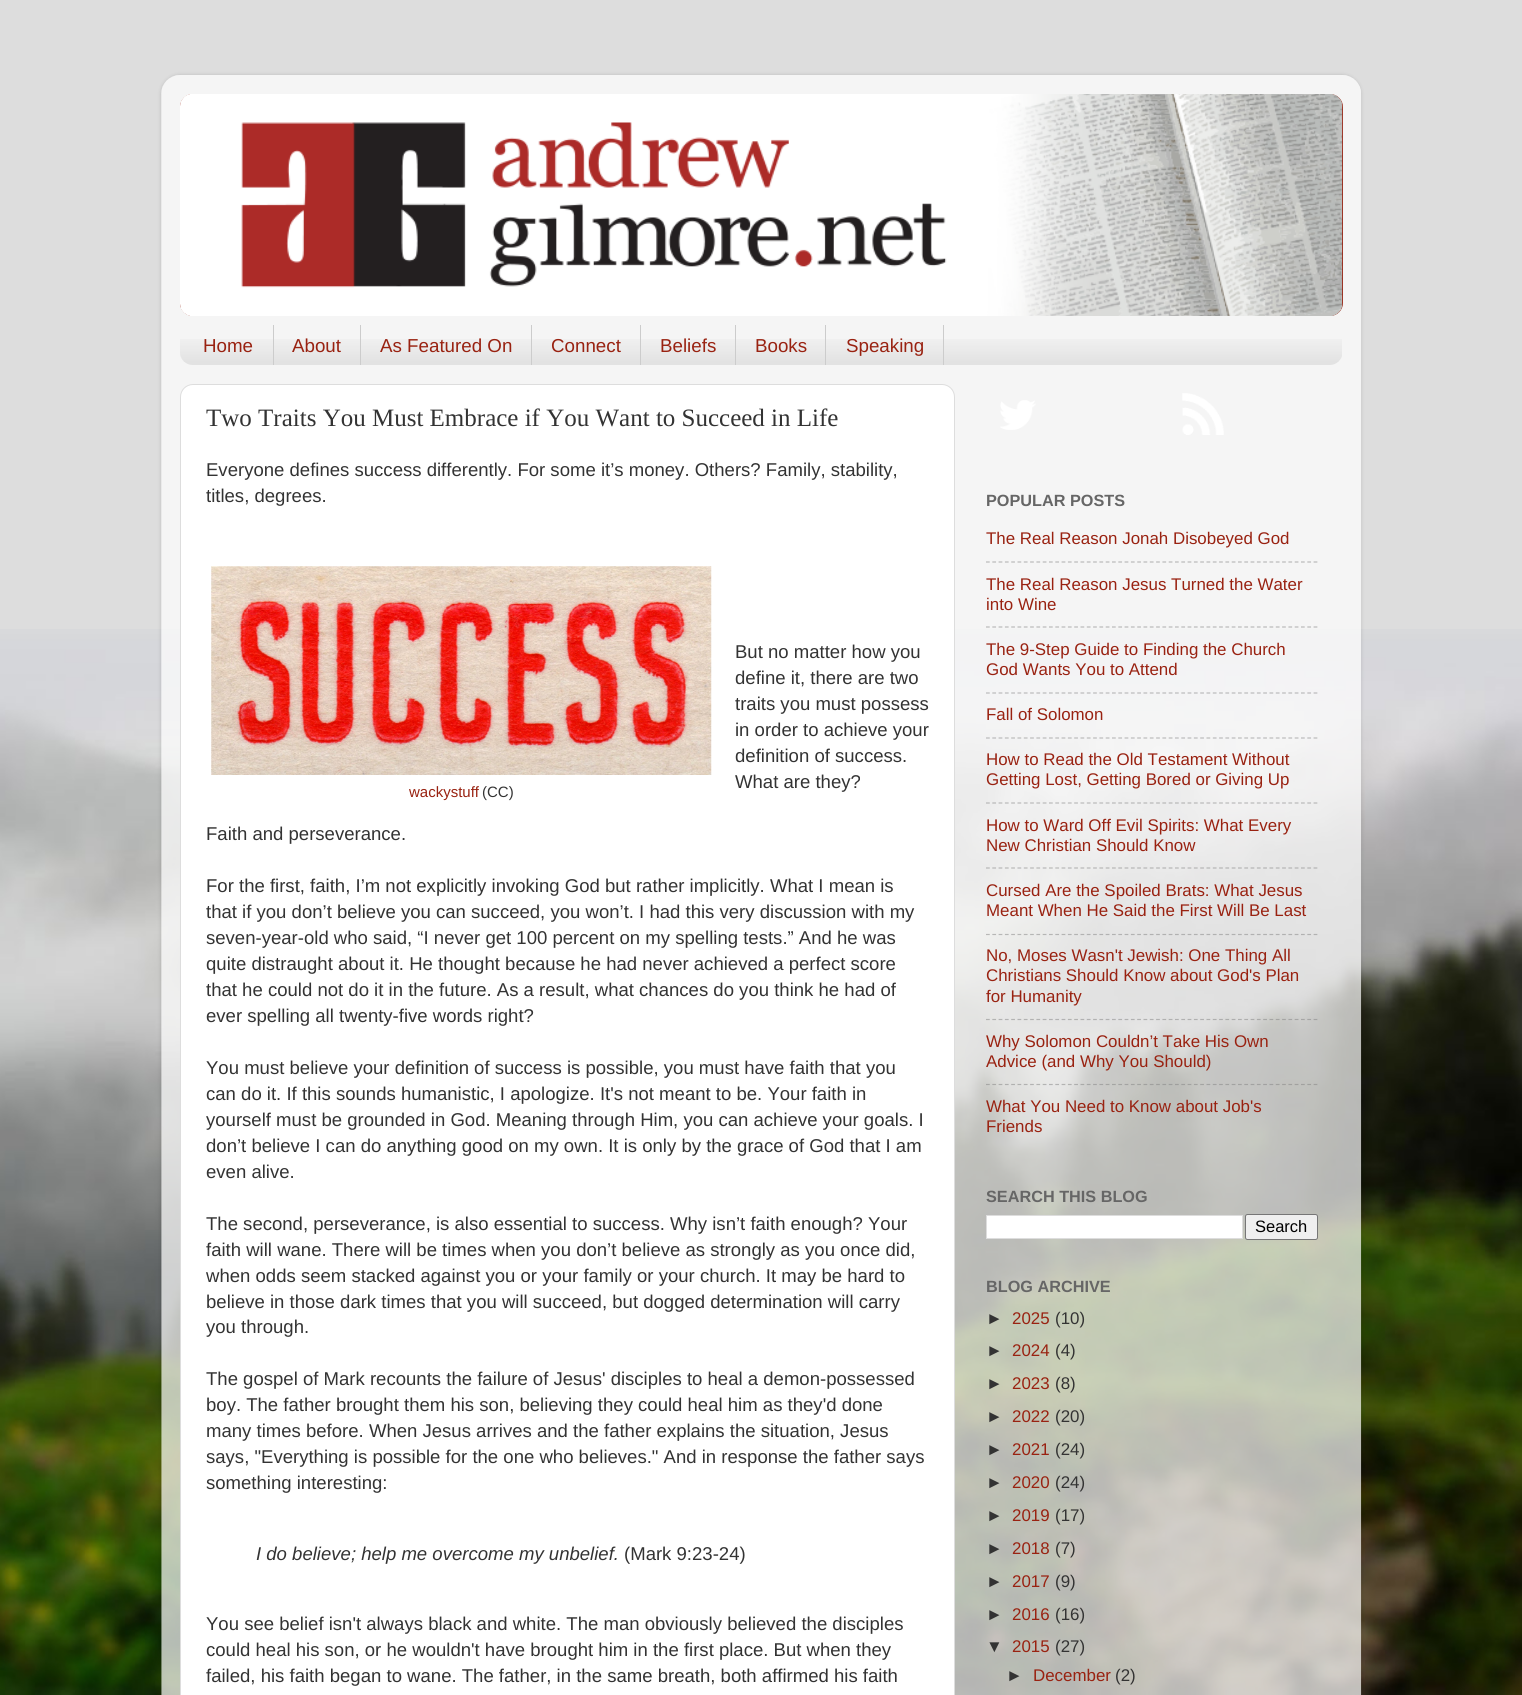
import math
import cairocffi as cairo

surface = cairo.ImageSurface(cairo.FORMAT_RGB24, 1522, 1695)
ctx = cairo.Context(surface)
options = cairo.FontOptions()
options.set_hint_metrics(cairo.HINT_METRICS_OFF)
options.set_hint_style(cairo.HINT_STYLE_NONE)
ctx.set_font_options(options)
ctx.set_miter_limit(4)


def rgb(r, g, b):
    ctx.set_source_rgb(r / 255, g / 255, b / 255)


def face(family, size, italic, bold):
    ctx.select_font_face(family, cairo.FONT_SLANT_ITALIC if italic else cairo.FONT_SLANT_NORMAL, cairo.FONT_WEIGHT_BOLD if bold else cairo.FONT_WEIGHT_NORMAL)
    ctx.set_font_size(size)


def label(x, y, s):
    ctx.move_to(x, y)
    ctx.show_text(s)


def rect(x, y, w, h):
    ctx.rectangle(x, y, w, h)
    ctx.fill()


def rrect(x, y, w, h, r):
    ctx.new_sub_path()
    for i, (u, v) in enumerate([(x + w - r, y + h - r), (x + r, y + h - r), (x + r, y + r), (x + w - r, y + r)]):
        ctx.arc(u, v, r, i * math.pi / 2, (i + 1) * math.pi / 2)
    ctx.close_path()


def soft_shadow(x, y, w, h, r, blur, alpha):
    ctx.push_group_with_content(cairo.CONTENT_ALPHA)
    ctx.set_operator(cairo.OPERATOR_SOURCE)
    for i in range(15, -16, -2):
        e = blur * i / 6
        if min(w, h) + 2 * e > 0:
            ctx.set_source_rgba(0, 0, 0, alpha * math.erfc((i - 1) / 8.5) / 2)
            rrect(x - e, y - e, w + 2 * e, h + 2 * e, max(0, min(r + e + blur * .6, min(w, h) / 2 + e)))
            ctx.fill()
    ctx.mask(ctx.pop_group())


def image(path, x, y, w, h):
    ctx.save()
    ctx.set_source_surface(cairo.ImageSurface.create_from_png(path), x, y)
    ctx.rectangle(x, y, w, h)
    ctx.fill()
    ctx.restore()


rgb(221, 221, 221)
ctx.paint()
image('image7.png', 0, 629, 1522, 1066)
ctx.save()
ctx.set_fill_rule(cairo.FILL_RULE_EVEN_ODD)
ctx.new_path()
ctx.move_to(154, 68)
ctx.line_to(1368, 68)
ctx.line_to(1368, 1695)
ctx.line_to(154, 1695)
ctx.close_path()
ctx.move_to(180, 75)
ctx.line_to(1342, 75)
ctx.curve_to(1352.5, 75, 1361, 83.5, 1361, 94)
ctx.line_to(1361, 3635)
ctx.curve_to(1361, 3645.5, 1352.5, 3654, 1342, 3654)
ctx.line_to(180, 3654)
ctx.curve_to(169.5, 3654, 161, 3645.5, 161, 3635)
ctx.line_to(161, 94)
ctx.curve_to(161, 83.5, 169.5, 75, 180, 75)
ctx.close_path()
ctx.clip()
rgb(0, 0, 0)
soft_shadow(161, 75, 1200, 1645, 19, 2, 0.15)
ctx.restore()
image('image0.png', 161, 75, 1201, 1620)
rgb(153, 34, 17)
rrect(180, 94, 1163, 222, 13)
ctx.fill()
image('image1.png', 180, 94, 1163, 54)
image('image2.png', 180, 94, 1163, 222)
image('image3.png', 180, 339, 1162, 26)
rgb(204, 204, 204)
rect(273, 325, 1, 40)
face('Liberation Sans', 18.75, 0, 0)
rgb(153, 34, 17)
label(203, 352, 'Home')
rgb(204, 204, 204)
rect(360, 325, 1, 40)
rgb(153, 34, 17)
label(292, 352, 'About')
rgb(204, 204, 204)
rect(531, 325, 1, 40)
rgb(153, 34, 17)
label(380, 352, 'As Featured On')
rgb(204, 204, 204)
rect(640, 325, 1, 40)
rgb(153, 34, 17)
label(551, 352, 'Connect')
rgb(204, 204, 204)
rect(735, 325, 1, 40)
rgb(153, 34, 17)
label(660, 352, 'Beliefs')
rgb(204, 204, 204)
rect(825, 325, 1, 40)
rgb(153, 34, 17)
label(755, 352, 'Books')
rgb(204, 204, 204)
rect(943, 325, 1, 40)
rgb(153, 34, 17)
label(846, 352, 'Speaking')
rgb(255, 255, 255)
rrect(180.5, 384.5, 774, 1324, 12.5)
ctx.fill_preserve()
rgb(221, 221, 221)
ctx.set_line_width(1)
ctx.stroke()
face('Liberation Serif', 25, 0, 0)
rgb(51, 51, 51)
label(206, 426, 'Two Traits You Must Embrace if You Want to Succeed in Life')
face('Liberation Sans', 18.55, 0, 0)
label(206, 476, 'Everyone defines success differently. For some it’s money. Others? Family, stability,')
label(206, 502, 'titles, degrees.')
image('image4.png', 211, 566, 501, 209)
face('Liberation Sans', 15, 0, 0)
rgb(153, 34, 17)
label(409, 797, 'wackystuff')
rgb(51, 51, 51)
label(482, 797, '(CC)')
face('Liberation Sans', 18.55, 0, 0)
label(735, 658, 'But no matter how you')
label(735, 684, 'define it, there are two')
label(735, 710, 'traits you must possess')
label(735, 736, 'in order to achieve your')
label(735, 762, 'definition of success.')
label(735, 788, 'What are they?')
label(206, 840, 'Faith and perseverance.')
label(206, 892, 'For the first, faith, I’m not explicitly invoking God but rather implicitly. What I mean is')
label(206, 918, 'that if you don’t believe you can succeed, you won’t. I had this very discussion with my')
label(206, 944, 'seven-year-old who said, “I never get 100 percent on my spelling tests.” And he was')
label(206, 970, 'quite distraught about it. He thought because he had never achieved a perfect score')
label(206, 996, 'that he could not do it in the future. As a result, what chances do you think he had of')
label(206, 1022, 'ever spelling all twenty-five words right?')
label(206, 1074, 'You must believe your definition of success is possible, you must have faith that you')
label(206, 1100, 'can do it. If this sounds humanistic, I apologize. It\'s not meant to be. Your faith in')
label(206, 1126, 'yourself must be grounded in God. Meaning through Him, you can achieve your goals. I')
label(206, 1152, 'don’t believe I can do anything good on my own. It is only by the grace of God that I am')
label(206, 1178, 'even alive.')
label(206, 1230, 'The second, perseverance, is also essential to success. Why isn’t faith enough? Your')
label(206, 1256, 'faith will wane. There will be times when you don’t believe as strongly as you once did,')
label(206, 1282, 'when odds seem stacked against you or your family or your church. It may be hard to')
label(206, 1308, 'believe in those dark times that you will succeed, but dogged determination will carry')
label(206, 1333, 'you through.')
label(206, 1385, 'The gospel of Mark recounts the failure of Jesus\' disciples to heal a demon-possessed')
label(206, 1411, 'boy. The father brought them his son, believing they could heal him as they\'d done')
label(206, 1437, 'many times before. When Jesus arrives and the father explains the situation, Jesus')
label(206, 1463, 'says, "Everything is possible for the one who believes." And in response the father says')
label(206, 1489, 'something interesting:')
face('Liberation Sans', 18.55, 1, 0)
label(256, 1560, 'I do believe; help me overcome my unbelief.')
face('Liberation Sans', 18.55, 0, 0)
label(624, 1560, '(Mark 9:23-24)')
label(206, 1630, 'You see belief isn\'t always black and white. The man obviously believed the disciples')
label(206, 1656, 'could heal his son, or he wouldn\'t have brought him in the first place. But when they')
label(206, 1682, 'failed, his faith began to wane. The father, in the same breath, both affirmed his faith')
image('image5.png', 1000, 400, 36, 30)
image('image6.png', 1182, 393, 42, 42)
face('Liberation Sans', 16.25, 0, 1)
rgb(102, 102, 102)
label(986, 506, 'POPULAR POSTS')
face('Liberation Sans', 16.9, 0, 0)
rgb(153, 34, 17)
label(986, 544, 'The Real Reason Jonah Disobeyed God')
ctx.new_path()
ctx.move_to(986, 562)
ctx.line_to(1317.5, 562)
rgb(186, 186, 186)
ctx.set_line_width(1.2)
ctx.set_dash([3.75, 2.55])
ctx.stroke()
rgb(153, 34, 17)
label(986, 590, 'The Real Reason Jesus Turned the Water')
label(986, 610, 'into Wine')
ctx.new_path()
ctx.move_to(986, 627)
ctx.line_to(1317.5, 627)
rgb(186, 186, 186)
ctx.stroke()
rgb(153, 34, 17)
label(986, 655, 'The 9-Step Guide to Finding the Church')
label(986, 675, 'God Wants You to Attend')
ctx.new_path()
ctx.move_to(986, 693)
ctx.line_to(1317.5, 693)
rgb(186, 186, 187)
ctx.stroke()
rgb(153, 34, 17)
label(986, 720, 'Fall of Solomon')
ctx.new_path()
ctx.move_to(986, 738)
ctx.line_to(1317.5, 738)
ctx.set_source_rgba(0.502, 0.502, 0.502, 0.5)
ctx.stroke()
rgb(153, 34, 17)
label(986, 765, 'How to Read the Old Testament Without')
label(986, 785, 'Getting Lost, Getting Bored or Giving Up')
ctx.new_path()
ctx.move_to(986, 803)
ctx.line_to(1317.5, 803)
ctx.set_source_rgba(0.502, 0.502, 0.502, 0.5)
ctx.stroke()
rgb(153, 34, 17)
label(986, 831, 'How to Ward Off Evil Spirits: What Every')
label(986, 851, 'New Christian Should Know')
ctx.new_path()
ctx.move_to(986, 868)
ctx.line_to(1317.5, 868)
ctx.set_source_rgba(0.502, 0.502, 0.502, 0.5)
ctx.stroke()
rgb(153, 34, 17)
label(986, 896, 'Cursed Are the Spoiled Brats: What Jesus')
label(986, 916, 'Meant When He Said the First Will Be Last')
ctx.new_path()
ctx.move_to(986, 934.5)
ctx.line_to(1317.5, 934.5)
ctx.set_source_rgba(0.502, 0.502, 0.502, 0.5)
ctx.stroke()
rgb(153, 34, 17)
label(986, 961, 'No, Moses Wasn\'t Jewish: One Thing All')
label(986, 981, 'Christians Should Know about God\'s Plan')
label(986, 1002, 'for Humanity')
ctx.new_path()
ctx.move_to(986, 1019.5)
ctx.line_to(1317.5, 1019.5)
ctx.set_source_rgba(0.502, 0.502, 0.502, 0.5)
ctx.stroke()
rgb(153, 34, 17)
label(986, 1047, 'Why Solomon Couldn’t Take His Own')
label(986, 1067, 'Advice (and Why You Should)')
ctx.new_path()
ctx.move_to(986, 1084.5)
ctx.line_to(1317.5, 1084.5)
ctx.set_source_rgba(0.502, 0.502, 0.502, 0.5)
ctx.stroke()
rgb(153, 34, 17)
label(986, 1112, 'What You Need to Know about Job\'s')
label(986, 1132, 'Friends')
face('Liberation Sans', 16.25, 0, 1)
rgb(102, 102, 102)
label(986, 1202, 'SEARCH THIS BLOG')
rgb(255, 255, 255)
ctx.rectangle(986.5, 1215.5, 256, 23)
ctx.fill_preserve()
rgb(221, 221, 221)
ctx.set_line_width(1)
ctx.set_dash([])
ctx.stroke()
rgb(239, 239, 239)
rrect(1245.5, 1214.5, 72, 25, 2)
ctx.fill_preserve()
rgb(118, 118, 118)
ctx.stroke()
face('Liberation Sans', 16.5, 0, 0)
rgb(0, 0, 0)
label(1255, 1232, 'Search')
face('Liberation Sans', 16.25, 0, 1)
rgb(102, 102, 102)
label(986, 1292, 'BLOG ARCHIVE')
face('Liberation Sans', 16.9, 0, 0)
rgb(51, 51, 51)
label(986, 1324, '►')
rgb(153, 34, 17)
label(1012, 1324, '2025')
rgb(51, 51, 51)
label(1055, 1324, '(10)')
label(986, 1356, '►')
rgb(153, 34, 17)
label(1012, 1356, '2024')
rgb(51, 51, 51)
label(1055, 1356, '(4)')
label(986, 1389, '►')
rgb(153, 34, 17)
label(1012, 1389, '2023')
rgb(51, 51, 51)
label(1055, 1389, '(8)')
label(986, 1422, '►')
rgb(153, 34, 17)
label(1012, 1422, '2022')
rgb(51, 51, 51)
label(1055, 1422, '(20)')
label(986, 1455, '►')
rgb(153, 34, 17)
label(1012, 1455, '2021')
rgb(51, 51, 51)
label(1055, 1455, '(24)')
label(986, 1488, '►')
rgb(153, 34, 17)
label(1012, 1488, '2020')
rgb(51, 51, 51)
label(1055, 1488, '(24)')
label(986, 1521, '►')
rgb(153, 34, 17)
label(1012, 1521, '2019')
rgb(51, 51, 51)
label(1055, 1521, '(17)')
label(986, 1554, '►')
rgb(153, 34, 17)
label(1012, 1554, '2018')
rgb(51, 51, 51)
label(1055, 1554, '(7)')
label(986, 1587, '►')
rgb(153, 34, 17)
label(1012, 1587, '2017')
rgb(51, 51, 51)
label(1055, 1587, '(9)')
label(986, 1620, '►')
rgb(153, 34, 17)
label(1012, 1620, '2016')
rgb(51, 51, 51)
label(1055, 1620, '(16)')
label(986, 1652, '▼')
rgb(153, 34, 17)
label(1012, 1652, '2015')
rgb(51, 51, 51)
label(1055, 1652, '(27)')
label(1006, 1681, '►')
rgb(153, 34, 17)
label(1033, 1681, 'December')
rgb(51, 51, 51)
label(1115, 1681, '(2)')
surface.write_to_png('render.png')
